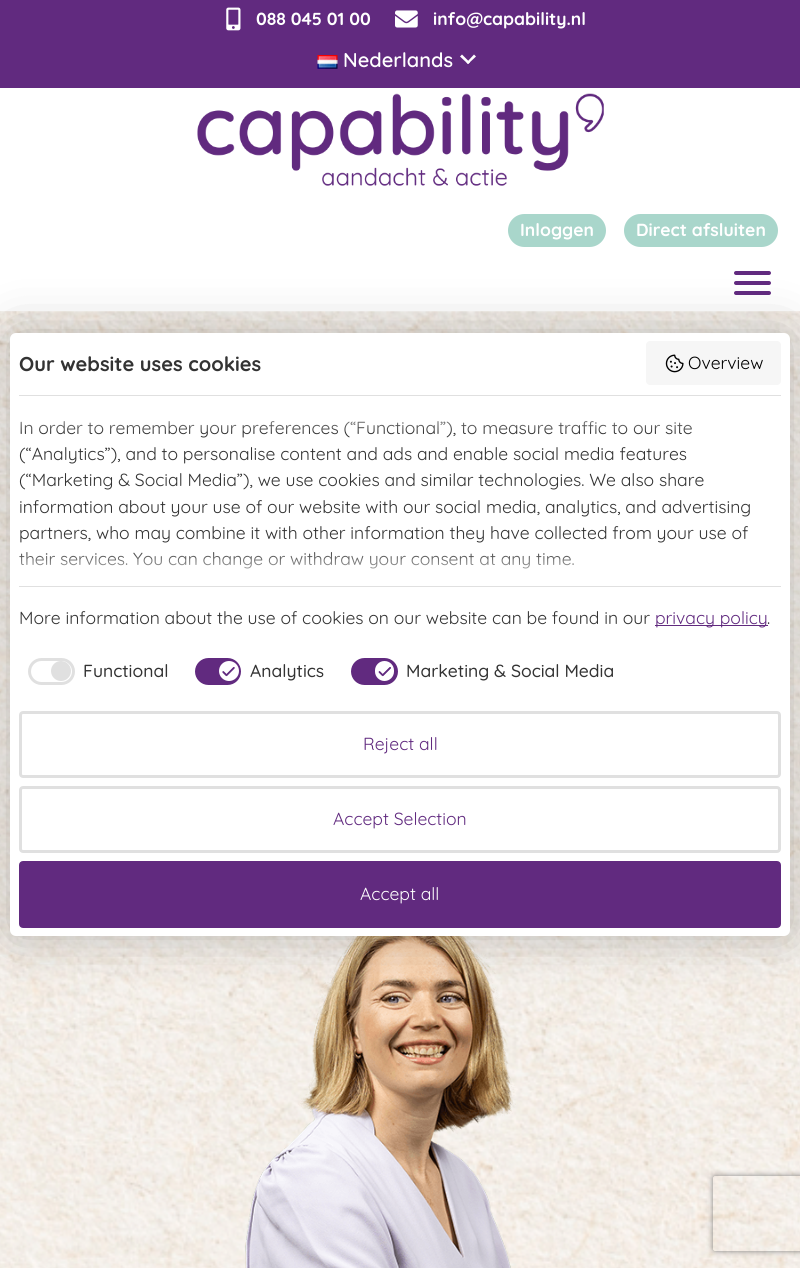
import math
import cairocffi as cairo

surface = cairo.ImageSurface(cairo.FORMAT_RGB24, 800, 1268)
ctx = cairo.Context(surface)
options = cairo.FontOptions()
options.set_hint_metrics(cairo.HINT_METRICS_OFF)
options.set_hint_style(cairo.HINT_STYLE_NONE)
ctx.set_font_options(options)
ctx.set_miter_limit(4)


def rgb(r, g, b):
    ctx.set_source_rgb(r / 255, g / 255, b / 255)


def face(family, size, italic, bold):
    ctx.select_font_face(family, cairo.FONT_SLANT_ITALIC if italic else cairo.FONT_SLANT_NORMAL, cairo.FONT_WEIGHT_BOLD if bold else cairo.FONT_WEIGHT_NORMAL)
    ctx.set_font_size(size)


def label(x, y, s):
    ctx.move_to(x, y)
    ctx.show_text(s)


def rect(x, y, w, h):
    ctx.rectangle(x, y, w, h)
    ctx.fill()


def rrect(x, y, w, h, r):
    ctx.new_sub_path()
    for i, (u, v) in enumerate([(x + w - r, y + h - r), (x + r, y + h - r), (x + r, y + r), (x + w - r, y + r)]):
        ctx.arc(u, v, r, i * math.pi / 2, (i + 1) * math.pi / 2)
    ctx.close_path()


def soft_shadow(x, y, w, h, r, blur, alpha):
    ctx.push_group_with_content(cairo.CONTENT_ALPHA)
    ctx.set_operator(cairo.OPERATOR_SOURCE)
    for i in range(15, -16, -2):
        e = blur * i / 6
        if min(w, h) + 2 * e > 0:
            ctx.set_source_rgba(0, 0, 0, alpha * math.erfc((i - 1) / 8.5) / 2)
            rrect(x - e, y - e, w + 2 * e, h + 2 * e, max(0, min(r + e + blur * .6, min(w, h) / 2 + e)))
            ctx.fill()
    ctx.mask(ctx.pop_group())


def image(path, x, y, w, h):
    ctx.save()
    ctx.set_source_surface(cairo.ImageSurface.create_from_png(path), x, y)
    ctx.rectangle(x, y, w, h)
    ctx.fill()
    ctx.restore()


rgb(255, 255, 255)
ctx.paint()
rgb(60, 60, 59)
soft_shadow(0, 0, 800, 311, 0, 9.5, 0.1)
rgb(255, 255, 255)
rect(0, 88, 800, 223)
rgb(97, 42, 127)
rect(0, 0, 800, 88)
image('image0.png', 226, 7, 15, 24)
face('Quicksand', 17.5, 0, 1)
rgb(255, 255, 255)
label(256, 25, '088 045 01 00')
image('image1.png', 395, 10, 23, 18)
label(433, 25, 'info@capability.nl')
image('image2.png', 317, 55, 21, 14)
face('Quicksand SemiBold', 20, 0, 0)
label(343, 67, 'Nederlands')
ctx.new_path()
ctx.move_to(474, 54.5)
ctx.line_to(476, 56.5)
ctx.line_to(468, 64)
ctx.line_to(466.5, 62.5)
ctx.close_path()
ctx.fill()
ctx.new_path()
ctx.move_to(462, 54.5)
ctx.line_to(470, 62.5)
ctx.line_to(468, 64)
ctx.line_to(460, 56.5)
ctx.close_path()
ctx.fill()
image('image3.png', 197, 93, 407, 93)
rgb(169, 214, 203)
rrect(506.5, 212.5, 101, 36, 18)
ctx.fill_preserve()
rgb(255, 255, 255)
ctx.set_line_width(3)
ctx.stroke()
face('Quicksand', 17.5, 0, 1)
label(520, 236, 'Inloggen')
rgb(169, 214, 203)
rrect(622.5, 212.5, 157, 36, 18)
ctx.fill_preserve()
rgb(255, 255, 255)
ctx.stroke()
label(636, 236, 'Direct afsluiten')
rgb(97, 42, 127)
rrect(734, 281, 37, 4, 2)
ctx.fill()
rrect(734, 271, 37, 4, 2)
ctx.fill()
rrect(734, 291, 37, 4, 2)
ctx.fill()
image('image4.png', 0, 311, 800, 957)
image('image5.png', 245, 936, 271, 332)
rgb(0, 0, 0)
soft_shadow(10, 333, 780, 603, 6, 25, 0.25)
rgb(255, 255, 255)
rrect(10, 333, 780, 603, 6)
ctx.fill()
face('Quicksand', 20, 0, 1)
rgb(51, 51, 51)
label(19, 371, 'Our website uses cookies')
rgb(246, 246, 246)
rrect(646, 341, 135, 44, 4)
ctx.fill()
image('image6.png', 665, 354, 19, 19)
face('Quicksand', 17.5, 0, 0)
rgb(0, 0, 0)
label(688, 369, 'Overview')
rgb(224, 224, 224)
rect(19, 395, 762, 1)
rect(19, 586, 762, 1)
rgb(51, 51, 51)
label(19, 434, 'In order to remember your preferences (“Functional”), to measure traffic to our site')
label(19, 460, '(“Analytics”), and to personalise content and ads and enable social media features')
label(19, 486, '(“Marketing & Social Media”), we use cookies and similar technologies. We also share')
label(19, 513, 'information about your use of our website with our social media, analytics, and advertising')
label(19, 539, 'partners, who may combine it with other information they have collected from your use of')
label(19, 565, 'their services. You can change or withdraw your consent at any time.')
gradient = cairo.LinearGradient(400, 433, 400, 395)
gradient.add_color_stop_rgba(0, 1, 1, 1, 0)
gradient.add_color_stop_rgba(1, 1, 1, 1, 1)
ctx.set_source(gradient)
rect(20, 421, 672, 11)
gradient = cairo.LinearGradient(400, 549, 400, 586)
gradient.add_color_stop_rgba(0, 1, 1, 1, 0)
gradient.add_color_stop_rgba(1, 1, 1, 1, 1)
ctx.set_source(gradient)
rect(19, 552, 555, 17)
rgb(51, 51, 51)
label(19, 624, 'More information about the use of cookies on our website can be found in our')
rgb(97, 42, 127)
rect(655, 625, 113, 1)
label(655, 624, 'privacy policy')
rgb(51, 51, 51)
label(767, 624, '.')
rrect(29.5, 659.5, 44, 24, 12)
rgb(224, 224, 224)
ctx.stroke()
ctx.arc(61, 671, 10, 0, 2 * math.pi)
ctx.fill()
face('Quicksand Medium', 17.5, 0, 0)
rgb(51, 51, 51)
label(83, 677, 'Functional')
rgb(97, 42, 127)
rrect(196.5, 659.5, 43, 24, 12)
ctx.fill_preserve()
ctx.stroke()
rgb(255, 255, 255)
ctx.arc(229, 671, 10, 0, 2 * math.pi)
ctx.fill()
image('image7.png', 222, 667, 13, 10)
rgb(51, 51, 51)
label(250, 677, 'Analytics')
rgb(97, 42, 127)
rrect(352.5, 659.5, 44, 24, 12)
ctx.fill_preserve()
ctx.stroke()
rgb(255, 255, 255)
rrect(375, 661, 19, 20, 9.5)
ctx.fill()
image('image8.png', 378, 667, 13, 10)
rgb(51, 51, 51)
label(406, 677, 'Marketing & Social Media')
rrect(20.5, 712.5, 759, 64, 2.5)
rgb(224, 224, 224)
ctx.stroke()
face('Quicksand', 17.5, 0, 0)
rgb(97, 42, 127)
label(363, 750, 'Reject all')
rrect(20.5, 787.5, 759, 64, 2.5)
rgb(224, 224, 224)
ctx.stroke()
rgb(97, 42, 127)
label(333, 825, 'Accept Selection')
rrect(20.5, 862.5, 759, 64, 2.5)
ctx.fill_preserve()
ctx.stroke()
rgb(255, 255, 255)
label(360, 900, 'Accept all')
ctx.save()
ctx.set_fill_rule(cairo.FILL_RULE_EVEN_ODD)
ctx.new_path()
ctx.move_to(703, 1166)
ctx.line_to(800, 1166)
ctx.line_to(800, 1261)
ctx.line_to(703, 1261)
ctx.close_path()
ctx.move_to(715.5, 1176)
ctx.line_to(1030.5, 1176)
ctx.curve_to(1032, 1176, 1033, 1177, 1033, 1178.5)
ctx.line_to(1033, 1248.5)
ctx.curve_to(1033, 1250, 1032, 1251, 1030.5, 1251)
ctx.line_to(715.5, 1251)
ctx.curve_to(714, 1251, 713, 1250, 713, 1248.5)
ctx.line_to(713, 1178.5)
ctx.curve_to(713, 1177, 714, 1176, 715.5, 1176)
ctx.close_path()
ctx.clip()
rgb(128, 128, 128)
soft_shadow(713, 1176, 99, 75, 2.5, 3, 1)
ctx.restore()
surface.write_to_png('render.png')
